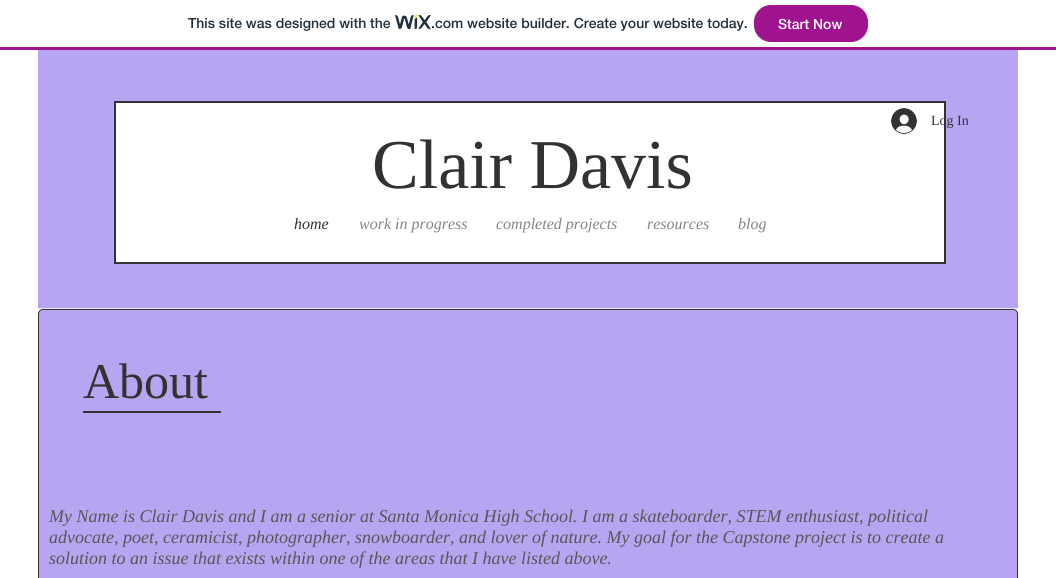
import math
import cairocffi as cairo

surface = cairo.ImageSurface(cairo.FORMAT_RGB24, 1056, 578)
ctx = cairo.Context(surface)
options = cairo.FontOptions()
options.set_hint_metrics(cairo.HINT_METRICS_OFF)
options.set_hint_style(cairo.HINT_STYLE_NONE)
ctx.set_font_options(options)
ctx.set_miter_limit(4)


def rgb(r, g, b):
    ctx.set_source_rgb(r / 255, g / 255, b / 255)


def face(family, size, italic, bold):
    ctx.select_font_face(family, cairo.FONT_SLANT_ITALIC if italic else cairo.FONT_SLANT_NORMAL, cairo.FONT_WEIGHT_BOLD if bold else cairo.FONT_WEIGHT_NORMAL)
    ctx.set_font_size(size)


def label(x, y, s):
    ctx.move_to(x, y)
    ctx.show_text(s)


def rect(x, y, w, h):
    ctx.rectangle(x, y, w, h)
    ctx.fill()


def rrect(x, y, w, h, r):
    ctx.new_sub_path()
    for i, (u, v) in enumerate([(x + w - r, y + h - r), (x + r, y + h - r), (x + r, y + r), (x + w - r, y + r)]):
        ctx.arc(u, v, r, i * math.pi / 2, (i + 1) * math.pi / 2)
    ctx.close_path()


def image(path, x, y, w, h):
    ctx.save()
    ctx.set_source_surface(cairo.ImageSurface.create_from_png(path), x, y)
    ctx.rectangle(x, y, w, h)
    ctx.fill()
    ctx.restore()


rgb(255, 255, 255)
ctx.paint()
rgb(160, 19, 142)
rect(0, 47, 1056, 3)
face('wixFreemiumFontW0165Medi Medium', 14, 0, 0)
rgb(32, 48, 60)
label(188, 28, 'This site was designed with the')
image('image0.png', 395, 15, 36, 15)
label(431, 28, '.com website builder. Create your website today.')
rgb(160, 19, 142)
rrect(754.5, 5.5, 113, 36, 16.5)
ctx.fill_preserve()
ctx.set_line_width(1)
ctx.stroke()
rgb(255, 255, 255)
label(778, 29, 'Start Now')
rgb(184, 165, 242)
rect(38, 50, 980, 258)
rgb(255, 255, 255)
ctx.rectangle(115, 102, 830, 161)
ctx.fill_preserve()
rgb(51, 49, 49)
ctx.set_line_width(2)
ctx.stroke()
image('image1.png', 891, 108, 26, 26)
face('Liberation Serif', 14, 0, 0)
label(931, 125, 'Log In')
rgb(237, 233, 252)
rect(38, 308, 980, 1)
face('Liberation Serif', 70, 0, 0)
rgb(51, 49, 49)
label(372, 188, 'Clair Davis')
face('Liberation Serif', 16, 1, 0)
label(294, 229, 'home')
rgb(133, 132, 132)
label(359, 229, 'work in progress')
label(496, 229, 'completed projects')
label(647, 229, 'resources')
label(738, 229, 'blog')
rgb(184, 165, 242)
rrect(38.5, 309.5, 979, 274, 4.5)
ctx.fill_preserve()
rgb(51, 49, 49)
ctx.set_line_width(1)
ctx.stroke()
face('Liberation Serif', 50, 0, 0)
label(83, 398, 'About')
rect(83, 411, 138, 2)
face('Liberation Serif', 18, 1, 0)
rgb(87, 86, 86)
label(49, 522, 'My Name is Clair Davis and I am a senior at Santa Monica High School. I am a skateboarder, STEM enthusiast, political')
label(49, 543, 'advocate, poet, ceramicist, photographer, snowboarder, and lover of nature. My goal for the Capstone project is to create a')
label(49, 564, 'solution to an issue that exists within one of the areas that I have listed above.')
surface.write_to_png('render.png')
